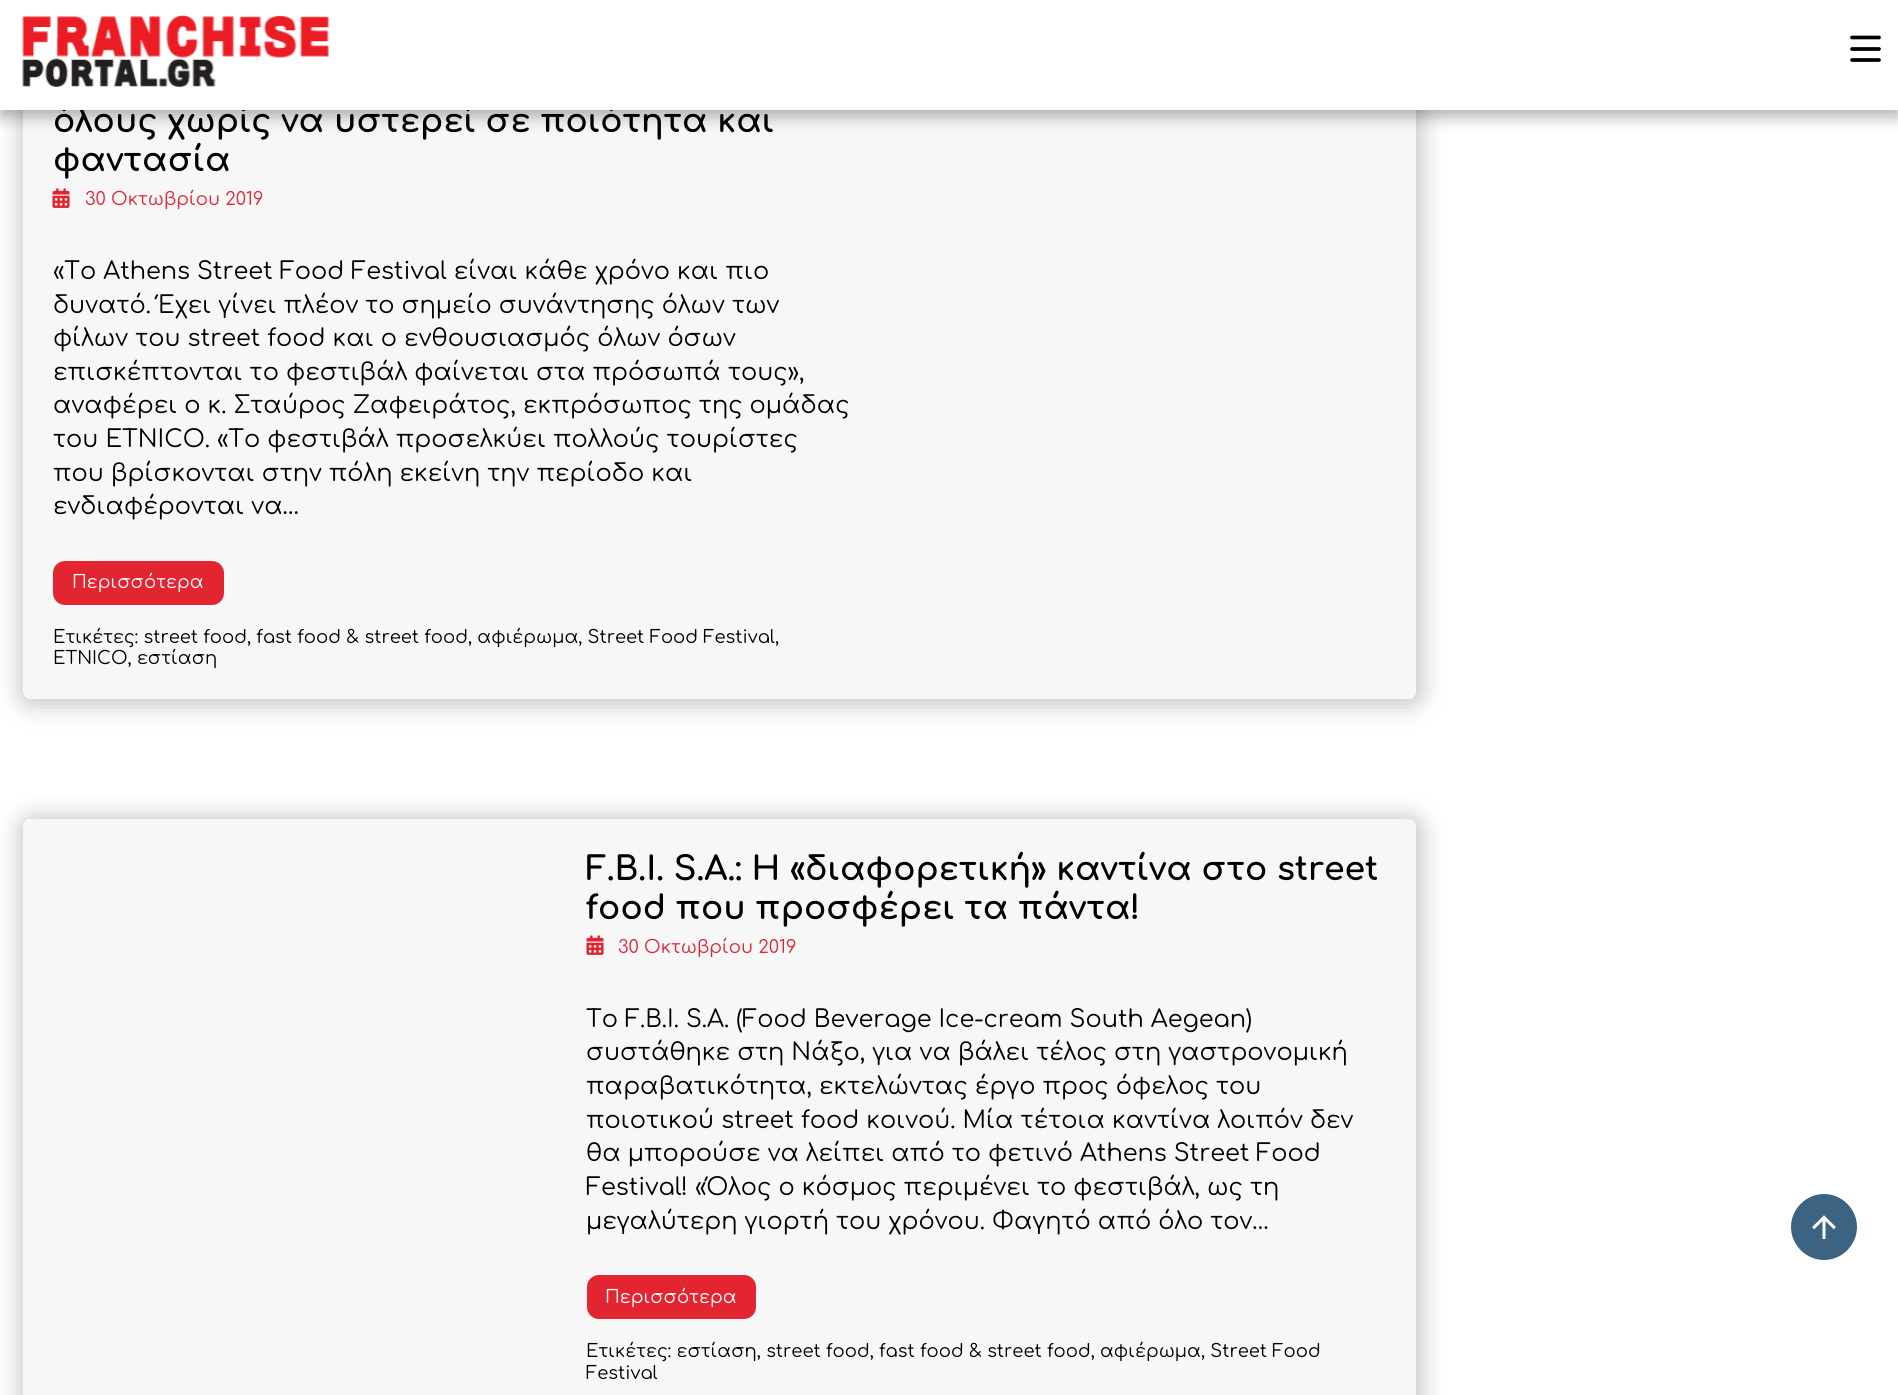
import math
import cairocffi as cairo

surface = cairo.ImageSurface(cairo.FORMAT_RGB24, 1898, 1395)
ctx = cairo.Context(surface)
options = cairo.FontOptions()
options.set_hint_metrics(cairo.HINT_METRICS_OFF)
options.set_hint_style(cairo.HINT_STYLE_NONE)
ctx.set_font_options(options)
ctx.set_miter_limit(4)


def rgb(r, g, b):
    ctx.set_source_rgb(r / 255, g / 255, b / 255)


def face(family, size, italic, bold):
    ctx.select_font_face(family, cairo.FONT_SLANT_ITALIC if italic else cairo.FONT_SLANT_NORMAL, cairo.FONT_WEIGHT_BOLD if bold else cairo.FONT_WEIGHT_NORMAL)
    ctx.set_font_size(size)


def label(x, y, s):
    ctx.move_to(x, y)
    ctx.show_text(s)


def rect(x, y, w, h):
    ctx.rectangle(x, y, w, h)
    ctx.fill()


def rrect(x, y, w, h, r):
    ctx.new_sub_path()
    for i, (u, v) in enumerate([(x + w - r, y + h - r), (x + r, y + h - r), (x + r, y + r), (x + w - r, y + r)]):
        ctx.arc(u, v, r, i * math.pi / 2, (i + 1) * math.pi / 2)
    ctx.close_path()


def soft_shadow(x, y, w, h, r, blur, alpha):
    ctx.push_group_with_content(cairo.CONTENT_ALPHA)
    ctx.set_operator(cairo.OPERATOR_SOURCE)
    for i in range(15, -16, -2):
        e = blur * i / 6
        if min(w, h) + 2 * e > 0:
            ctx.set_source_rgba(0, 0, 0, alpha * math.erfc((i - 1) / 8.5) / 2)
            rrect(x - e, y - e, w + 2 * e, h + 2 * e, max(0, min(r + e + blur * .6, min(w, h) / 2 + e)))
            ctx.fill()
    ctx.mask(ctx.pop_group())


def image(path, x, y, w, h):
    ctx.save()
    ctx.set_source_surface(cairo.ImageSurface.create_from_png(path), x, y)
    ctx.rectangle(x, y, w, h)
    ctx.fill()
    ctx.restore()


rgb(255, 255, 255)
ctx.paint()
ctx.save()
ctx.set_fill_rule(cairo.FILL_RULE_EVEN_ODD)
ctx.new_path()
ctx.move_to(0, 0)
ctx.line_to(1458, 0)
ctx.line_to(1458, 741)
ctx.line_to(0, 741)
ctx.close_path()
ctx.move_to(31, 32)
ctx.line_to(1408, 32)
ctx.curve_to(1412.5, 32, 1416, 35.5, 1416, 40)
ctx.line_to(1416, 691)
ctx.curve_to(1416, 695.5, 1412.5, 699, 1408, 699)
ctx.line_to(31, 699)
ctx.curve_to(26.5, 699, 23, 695.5, 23, 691)
ctx.line_to(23, 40)
ctx.curve_to(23, 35.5, 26.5, 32, 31, 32)
ctx.close_path()
ctx.clip()
rgb(0, 0, 0)
soft_shadow(18, 27, 1406, 680, 14, 11, 0.2)
ctx.restore()
ctx.set_source_rgba(0.969, 0.969, 0.969, 0.97)
rrect(23, 32, 1393, 667, 8)
ctx.fill()
rgb(0, 0, 0)
soft_shadow(0, 8, 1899, 109, 0, 7.5, 0.3)
face('Comfortaa', 33, 0, 1)
rgb(0, 0, 0)
label(53, 132, 'όλους χωρίς να υστερεί σε ποιότητα και')
rgb(255, 255, 255)
rect(0, 0, 1898, 110)
image('image0.png', 22, 15, 307, 72)
ctx.new_path()
ctx.move_to(1852, 37.5)
ctx.line_to(1879, 37.5)
ctx.move_to(1852, 49)
ctx.line_to(1879, 49)
ctx.move_to(1852, 60)
ctx.line_to(1879, 60)
rgb(0, 0, 0)
ctx.set_line_width(3.7)
ctx.set_line_cap(cairo.LINE_CAP_ROUND)
ctx.stroke()
label(53, 171, 'φαντασία')
image('image1.png', 52, 188, 18, 20)
face('Comfortaa', 18, 0, 0)
rgb(226, 37, 48)
label(85, 205, '30 Οκτωβρίου 2019')
face('Comfortaa', 24, 0, 0)
rgb(0, 0, 0)
label(53, 279, '«Το Athens Street Food Festival είναι κάθε χρόνο και πιο')
label(53, 313, 'δυνατό. Έχει γίνει πλέον το σημείο συνάντησης όλων των')
label(53, 346, 'φίλων του street food και ο ενθουσιασμός όλων όσων')
label(53, 380, 'επισκέπτονται το φεστιβάλ φαίνεται στα πρόσωπά τους»,')
label(53, 413, 'αναφέρει ο κ. Σταύρος Ζαφειράτος, εκπρόσωπος της ομάδας')
label(53, 447, 'του ETNICO. «Το φεστιβάλ προσελκύει πολλούς τουρίστες')
label(53, 481, 'που βρίσκονται στην πόλη εκείνη την περίοδο και')
label(53, 514, 'ενδιαφέρονται να…')
rgb(226, 37, 48)
rrect(54, 562, 169, 42, 11)
ctx.fill_preserve()
ctx.set_line_width(2)
ctx.set_line_cap(cairo.LINE_CAP_BUTT)
ctx.stroke()
face('Comfortaa', 18, 0, 0)
rgb(255, 255, 255)
label(72, 588, 'Περισσότερα')
rgb(0, 0, 0)
label(53, 643, 'Ετικέτες: street food, fast food & street food, αφιέρωμα, Street Food Festival,')
label(53, 664, 'ETNICO, εστίαση')
ctx.save()
ctx.set_fill_rule(cairo.FILL_RULE_EVEN_ODD)
ctx.new_path()
ctx.move_to(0, 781)
ctx.line_to(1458, 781)
ctx.line_to(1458, 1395)
ctx.line_to(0, 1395)
ctx.close_path()
ctx.move_to(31, 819)
ctx.line_to(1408, 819)
ctx.curve_to(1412.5, 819, 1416, 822.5, 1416, 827)
ctx.line_to(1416, 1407)
ctx.curve_to(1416, 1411.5, 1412.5, 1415, 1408, 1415)
ctx.line_to(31, 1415)
ctx.curve_to(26.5, 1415, 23, 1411.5, 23, 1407)
ctx.line_to(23, 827)
ctx.curve_to(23, 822.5, 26.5, 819, 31, 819)
ctx.close_path()
ctx.clip()
rgb(0, 0, 0)
soft_shadow(18, 815, 1406, 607, 14, 11, 0.2)
ctx.restore()
ctx.set_source_rgba(0.969, 0.969, 0.969, 0.97)
rrect(23, 819, 1393, 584, 8)
ctx.fill()
face('Comfortaa', 33, 0, 1)
rgb(0, 0, 0)
label(586, 880, 'F.B.I. S.A.: Η «διαφορετική» καντίνα στο street')
label(586, 919, 'food που προσφέρει τα πάντα!')
image('image1.png', 586, 935, 18, 20)
face('Comfortaa', 18, 0, 0)
rgb(226, 37, 48)
label(618, 953, '30 Οκτωβρίου 2019')
face('Comfortaa', 24, 0, 0)
rgb(0, 0, 0)
label(586, 1027, 'Το F.B.I. S.A. (Food Beverage Ice-cream South Aegean)')
label(586, 1060, 'συστάθηκε στη Νάξο, για να βάλει τέλος στη γαστρονομική')
label(586, 1094, 'παραβατικότητα, εκτελώντας έργο προς όφελος του')
label(586, 1128, 'ποιοτικού street food κοινού. Μία τέτοια καντίνα λοιπόν δεν')
label(586, 1161, 'θα μπορούσε να λείπει από το φετινό Athens Street Food')
label(586, 1195, 'Festival! «Όλος ο κόσμος περιμένει το φεστιβάλ, ως τη')
label(586, 1229, 'μεγαλύτερη γιορτή του χρόνου. Φαγητό από όλο τον…')
rgb(226, 37, 48)
rrect(588, 1276, 167, 42, 11)
ctx.fill_preserve()
ctx.stroke()
face('Comfortaa', 18, 0, 0)
rgb(255, 255, 255)
label(605, 1303, 'Περισσότερα')
rgb(0, 0, 0)
label(586, 1357, 'Ετικέτες: εστίαση, street food, fast food & street food, αφιέρωμα, Street Food')
label(586, 1379, 'Festival')
rgb(60, 99, 130)
ctx.new_path()
ctx.move_to(1857, 1227)
ctx.curve_to(1857, 1245, 1842, 1260, 1824, 1260)
ctx.curve_to(1806, 1260, 1791, 1245, 1791, 1227)
ctx.curve_to(1791, 1209, 1806, 1194, 1824, 1194)
ctx.curve_to(1842, 1194, 1857, 1209, 1857, 1227)
ctx.close_path()
ctx.fill()
image('image2.png', 1812, 1215, 24, 24)
surface.write_to_png('render.png')
